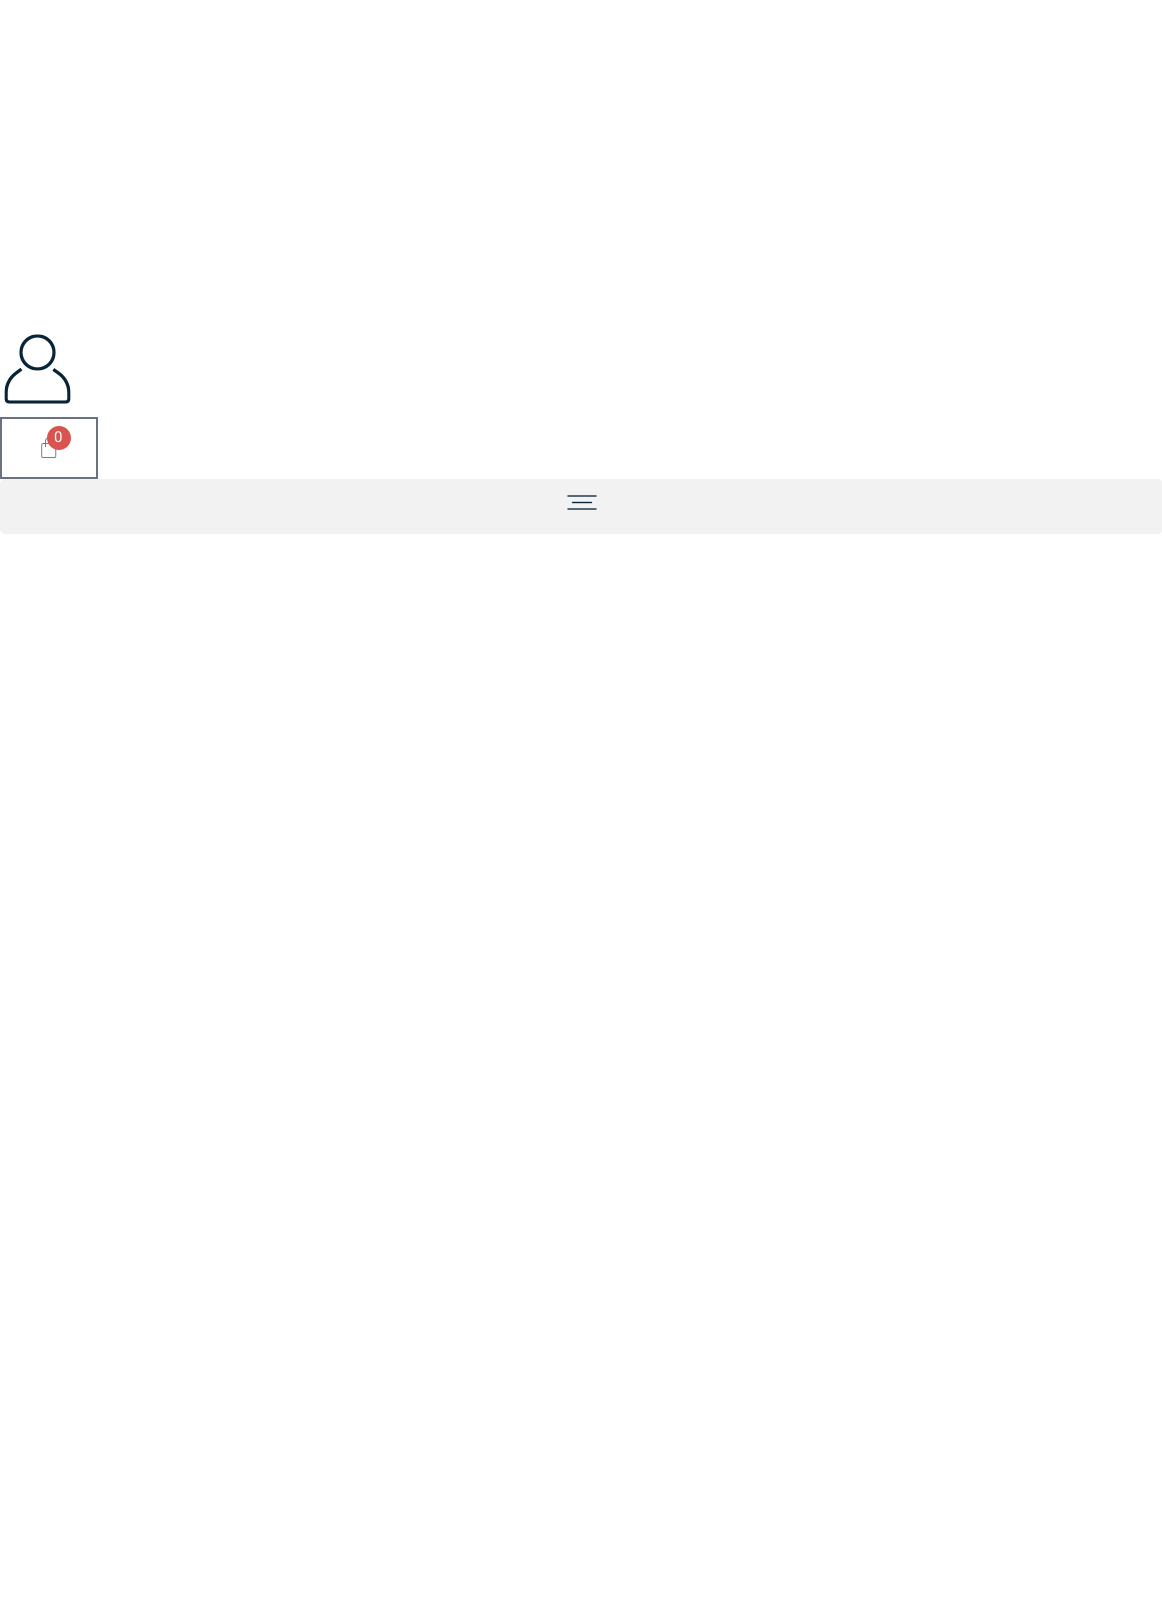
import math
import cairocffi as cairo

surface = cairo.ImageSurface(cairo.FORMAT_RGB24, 1162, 1624)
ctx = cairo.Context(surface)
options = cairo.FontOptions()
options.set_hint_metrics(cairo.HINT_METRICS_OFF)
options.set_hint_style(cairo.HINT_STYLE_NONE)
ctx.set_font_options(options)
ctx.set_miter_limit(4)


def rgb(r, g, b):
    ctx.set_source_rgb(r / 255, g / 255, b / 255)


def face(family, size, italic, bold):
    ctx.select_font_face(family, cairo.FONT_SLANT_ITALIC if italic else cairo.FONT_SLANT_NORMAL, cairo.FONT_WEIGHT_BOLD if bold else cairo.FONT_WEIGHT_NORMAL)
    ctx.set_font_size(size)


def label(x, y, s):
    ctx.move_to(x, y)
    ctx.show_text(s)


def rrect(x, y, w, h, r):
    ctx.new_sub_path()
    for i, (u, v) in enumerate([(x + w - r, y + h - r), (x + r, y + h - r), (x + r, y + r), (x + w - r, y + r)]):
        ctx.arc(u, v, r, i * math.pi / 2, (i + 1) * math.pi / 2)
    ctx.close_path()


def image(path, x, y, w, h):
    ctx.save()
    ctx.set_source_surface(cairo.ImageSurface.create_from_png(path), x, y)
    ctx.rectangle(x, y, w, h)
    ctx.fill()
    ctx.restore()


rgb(255, 255, 255)
ctx.paint()
image('image0.png', 4, 334, 67, 70)
ctx.rectangle(1, 418, 96, 60)
rgb(105, 114, 125)
ctx.stroke()
image('image1.png', 41, 437, 16, 22)
rgb(217, 83, 79)
ctx.arc(59, 438, 12, 0, 2 * math.pi)
ctx.fill()
face('Roboto', 15, 0, 0)
rgb(255, 255, 255)
label(54, 442, '0')
rgb(242, 242, 242)
rrect(0, 479, 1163, 55, 5)
ctx.fill()
ctx.new_path()
ctx.move_to(568, 496)
ctx.line_to(596, 496)
ctx.move_to(572.5, 502.5)
ctx.line_to(591.5, 502.5)
ctx.move_to(568, 509)
ctx.line_to(596, 509)
rgb(9, 36, 54)
ctx.set_line_width(1.4)
ctx.set_line_cap(cairo.LINE_CAP_ROUND)
ctx.stroke()
surface.write_to_png('render.png')
